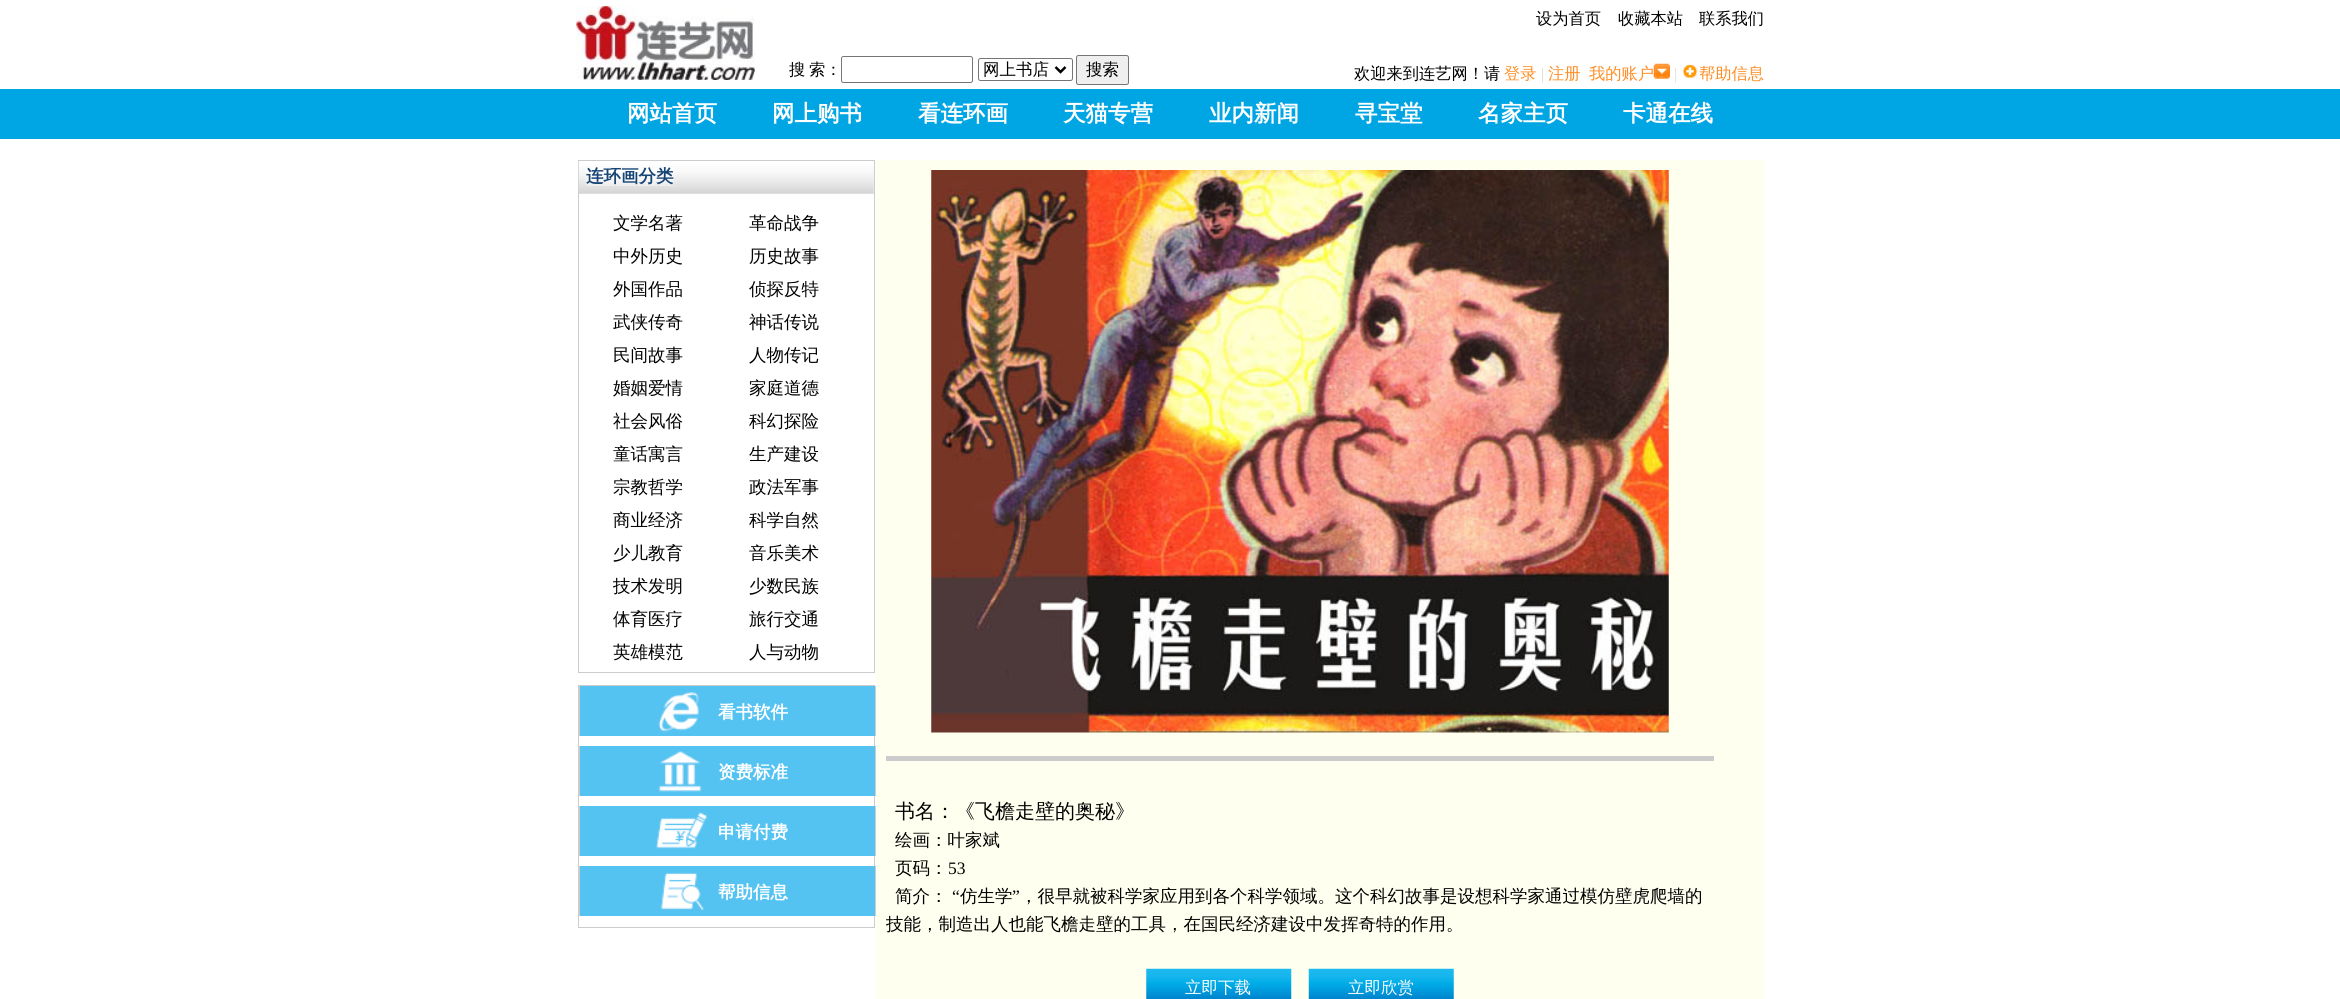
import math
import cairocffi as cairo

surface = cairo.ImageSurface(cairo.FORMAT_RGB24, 2340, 999)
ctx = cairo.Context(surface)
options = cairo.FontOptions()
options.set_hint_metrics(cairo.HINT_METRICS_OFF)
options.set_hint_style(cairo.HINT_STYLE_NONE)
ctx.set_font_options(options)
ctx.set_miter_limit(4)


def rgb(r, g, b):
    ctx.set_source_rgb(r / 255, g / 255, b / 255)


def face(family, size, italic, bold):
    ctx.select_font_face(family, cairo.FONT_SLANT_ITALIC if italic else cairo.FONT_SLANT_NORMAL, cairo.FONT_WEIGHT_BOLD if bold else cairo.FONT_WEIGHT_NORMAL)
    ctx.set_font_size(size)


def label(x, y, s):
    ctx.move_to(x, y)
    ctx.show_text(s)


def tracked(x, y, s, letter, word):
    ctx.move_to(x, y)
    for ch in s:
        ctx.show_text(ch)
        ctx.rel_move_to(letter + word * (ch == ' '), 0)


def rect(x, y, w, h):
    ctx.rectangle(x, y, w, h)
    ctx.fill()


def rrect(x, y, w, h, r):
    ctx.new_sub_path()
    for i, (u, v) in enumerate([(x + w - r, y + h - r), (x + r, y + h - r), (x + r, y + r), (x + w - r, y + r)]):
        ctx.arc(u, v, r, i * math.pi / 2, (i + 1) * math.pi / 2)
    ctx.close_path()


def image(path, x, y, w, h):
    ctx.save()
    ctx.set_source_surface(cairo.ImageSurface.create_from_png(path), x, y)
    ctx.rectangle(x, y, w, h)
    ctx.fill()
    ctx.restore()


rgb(255, 255, 255)
ctx.paint()
image('image0.png', 576, 6, 179, 74)
face('WenQuanYi Zen Hei Medium', 16.25, 0, 0)
rgb(0, 0, 0)
label(1536, 24, '设为首页')
label(1618, 24, '收藏本站')
label(1699, 24, '联系我们')
tracked(789, 75, '搜 索：', 0, -1)
rrect(841.5, 56.5, 131, 26, 2)
rgb(118, 118, 118)
ctx.set_line_width(1)
ctx.stroke()
rrect(978.5, 58.5, 94, 22, 2)
ctx.stroke()
ctx.new_path()
ctx.move_to(1055.5, 67)
ctx.line_to(1060.5, 72)
ctx.line_to(1065.5, 67)
rgb(0, 0, 0)
ctx.set_line_width(2.5)
ctx.stroke()
face('WenQuanYi Zen Hei Medium', 16.5, 0, 0)
label(983, 75, '网上书店')
rgb(239, 239, 239)
rrect(1076.5, 55.5, 52, 29, 2)
ctx.fill_preserve()
rgb(118, 118, 118)
ctx.set_line_width(1)
ctx.stroke()
rgb(0, 0, 0)
label(1086, 75, '搜索')
face('WenQuanYi Zen Hei Medium', 16.25, 0, 0)
label(1354, 79, '欢迎来到连艺网！请')
rgb(255, 141, 35)
label(1504, 79, '登录')
face('Liberation Serif', 16.25, 0, 0)
rgb(216, 216, 216)
label(1541, 79, '|')
face('WenQuanYi Zen Hei Medium', 16.25, 0, 0)
rgb(255, 141, 35)
label(1548, 79, '注册')
label(1589, 79, '我的账户')
image('image1.png', 1653, 63, 17, 16)
face('Liberation Serif', 16.25, 0, 0)
rgb(222, 222, 222)
label(1674, 79, '|')
image('image2.png', 1682, 64, 16, 14)
face('WenQuanYi Zen Hei Medium', 16.25, 0, 0)
rgb(255, 141, 35)
label(1699, 79, '帮助信息')
rgb(0, 165, 227)
rect(0, 89, 2340, 50)
face('WenQuanYi Zen Hei', 22.5, 0, 1)
rgb(255, 255, 255)
label(627, 121, '网站首页')
label(772, 121, '网上购书')
label(918, 121, '看连环画')
label(1063, 121, '天猫专营')
label(1209, 121, '业内新闻')
label(1355, 121, '寻宝堂')
label(1478, 121, '名家主页')
label(1623, 121, '卡通在线')
ctx.rectangle(578.5, 160.5, 296, 512)
rgb(204, 204, 204)
ctx.stroke()
image('image3.png', 578, 161, 296, 33)
image('image4.png', 586, 168, 88, 18)
face('WenQuanYi Zen Hei', 17.5, 0, 1)
rgb(22, 68, 116)
label(586, 182, '连环画分类')
face('WenQuanYi Zen Hei Medium', 17.5, 0, 0)
rgb(0, 0, 0)
label(613, 229, '文学名著')
label(749, 229, '革命战争')
label(613, 262, '中外历史')
label(749, 262, '历史故事')
label(613, 295, '外国作品')
label(749, 295, '侦探反特')
label(613, 328, '武侠传奇')
label(749, 328, '神话传说')
label(613, 361, '民间故事')
label(749, 361, '人物传记')
label(613, 394, '婚姻爱情')
label(749, 394, '家庭道德')
label(613, 427, '社会风俗')
label(749, 427, '科幻探险')
label(613, 460, '童话寓言')
label(749, 460, '生产建设')
label(613, 493, '宗教哲学')
label(749, 493, '政法军事')
label(613, 526, '商业经济')
label(749, 526, '科学自然')
label(613, 559, '少儿教育')
label(749, 559, '音乐美术')
label(613, 592, '技术发明')
label(749, 592, '少数民族')
label(613, 625, '体育医疗')
label(749, 625, '旅行交通')
label(613, 658, '英雄模范')
label(749, 658, '人与动物')
ctx.rectangle(578.5, 685.5, 296, 242)
rgb(204, 204, 204)
ctx.stroke()
rgb(84, 195, 241)
rect(580, 686, 295, 50)
rgb(204, 204, 204)
rect(875, 686, 1, 50)
rect(579, 686, 1, 50)
image('image5.png', 658, 692, 41, 40)
face('WenQuanYi Zen Hei', 17.5, 0, 1)
rgb(255, 255, 255)
label(718, 718, '看书软件')
rgb(84, 195, 241)
rect(580, 746, 295, 50)
rgb(204, 204, 204)
rect(875, 746, 1, 50)
rect(579, 746, 1, 50)
image('image6.png', 658, 751, 44, 41)
rgb(255, 255, 255)
label(718, 778, '资费标准')
rgb(84, 195, 241)
rect(580, 806, 295, 50)
rgb(204, 204, 204)
rect(875, 806, 1, 50)
rect(579, 806, 1, 50)
image('image7.png', 656, 812, 52, 37)
rgb(255, 255, 255)
label(718, 838, '申请付费')
rgb(84, 195, 241)
rect(580, 866, 295, 50)
rgb(204, 204, 204)
rect(875, 866, 1, 50)
rect(579, 866, 1, 50)
image('image8.png', 660, 872, 44, 39)
rgb(255, 255, 255)
label(718, 898, '帮助信息')
rgb(255, 255, 240)
rect(876, 160, 888, 839)
image('image9.png', 931, 170, 738, 563)
rgb(204, 204, 204)
rect(886, 756, 828, 5)
face('WenQuanYi Zen Hei Medium', 20, 0, 0)
rgb(0, 0, 0)
label(895, 818, '书名：《飞檐走壁的奥秘》')
face('WenQuanYi Zen Hei Medium', 17.5, 0, 0)
label(895, 846, '绘画：叶家斌')
label(895, 874, '页码：')
face('Liberation Serif', 17.5, 0, 0)
label(948, 874, '53')
face('WenQuanYi Zen Hei Medium', 17.5, 0, 0)
label(895, 902, '简介：')
face('Liberation Serif', 17.5, 0, 0)
label(952, 902, '“')
face('WenQuanYi Zen Hei Medium', 17.5, 0, 0)
label(960, 902, '仿生学')
face('Liberation Serif', 17.5, 0, 0)
label(1012, 902, '”')
face('WenQuanYi Zen Hei Medium', 17.5, 0, 0)
label(1020, 902, '，很早就被科学家应用到各个科学领域。这个科幻故事是设想科学家通过模仿壁虎爬墙的')
label(886, 930, '技能，制造出人也能飞檐走壁的工具，在国民经济建设中发挥奇特的作用。')
image('image10.png', 1146, 968, 146, 31)
face('WenQuanYi Zen Hei Medium', 16.5, 0, 0)
rgb(255, 255, 255)
label(1185, 993, '立即下载')
image('image11.png', 1308, 968, 146, 31)
label(1348, 993, '立即欣赏')
surface.write_to_png('render.png')
